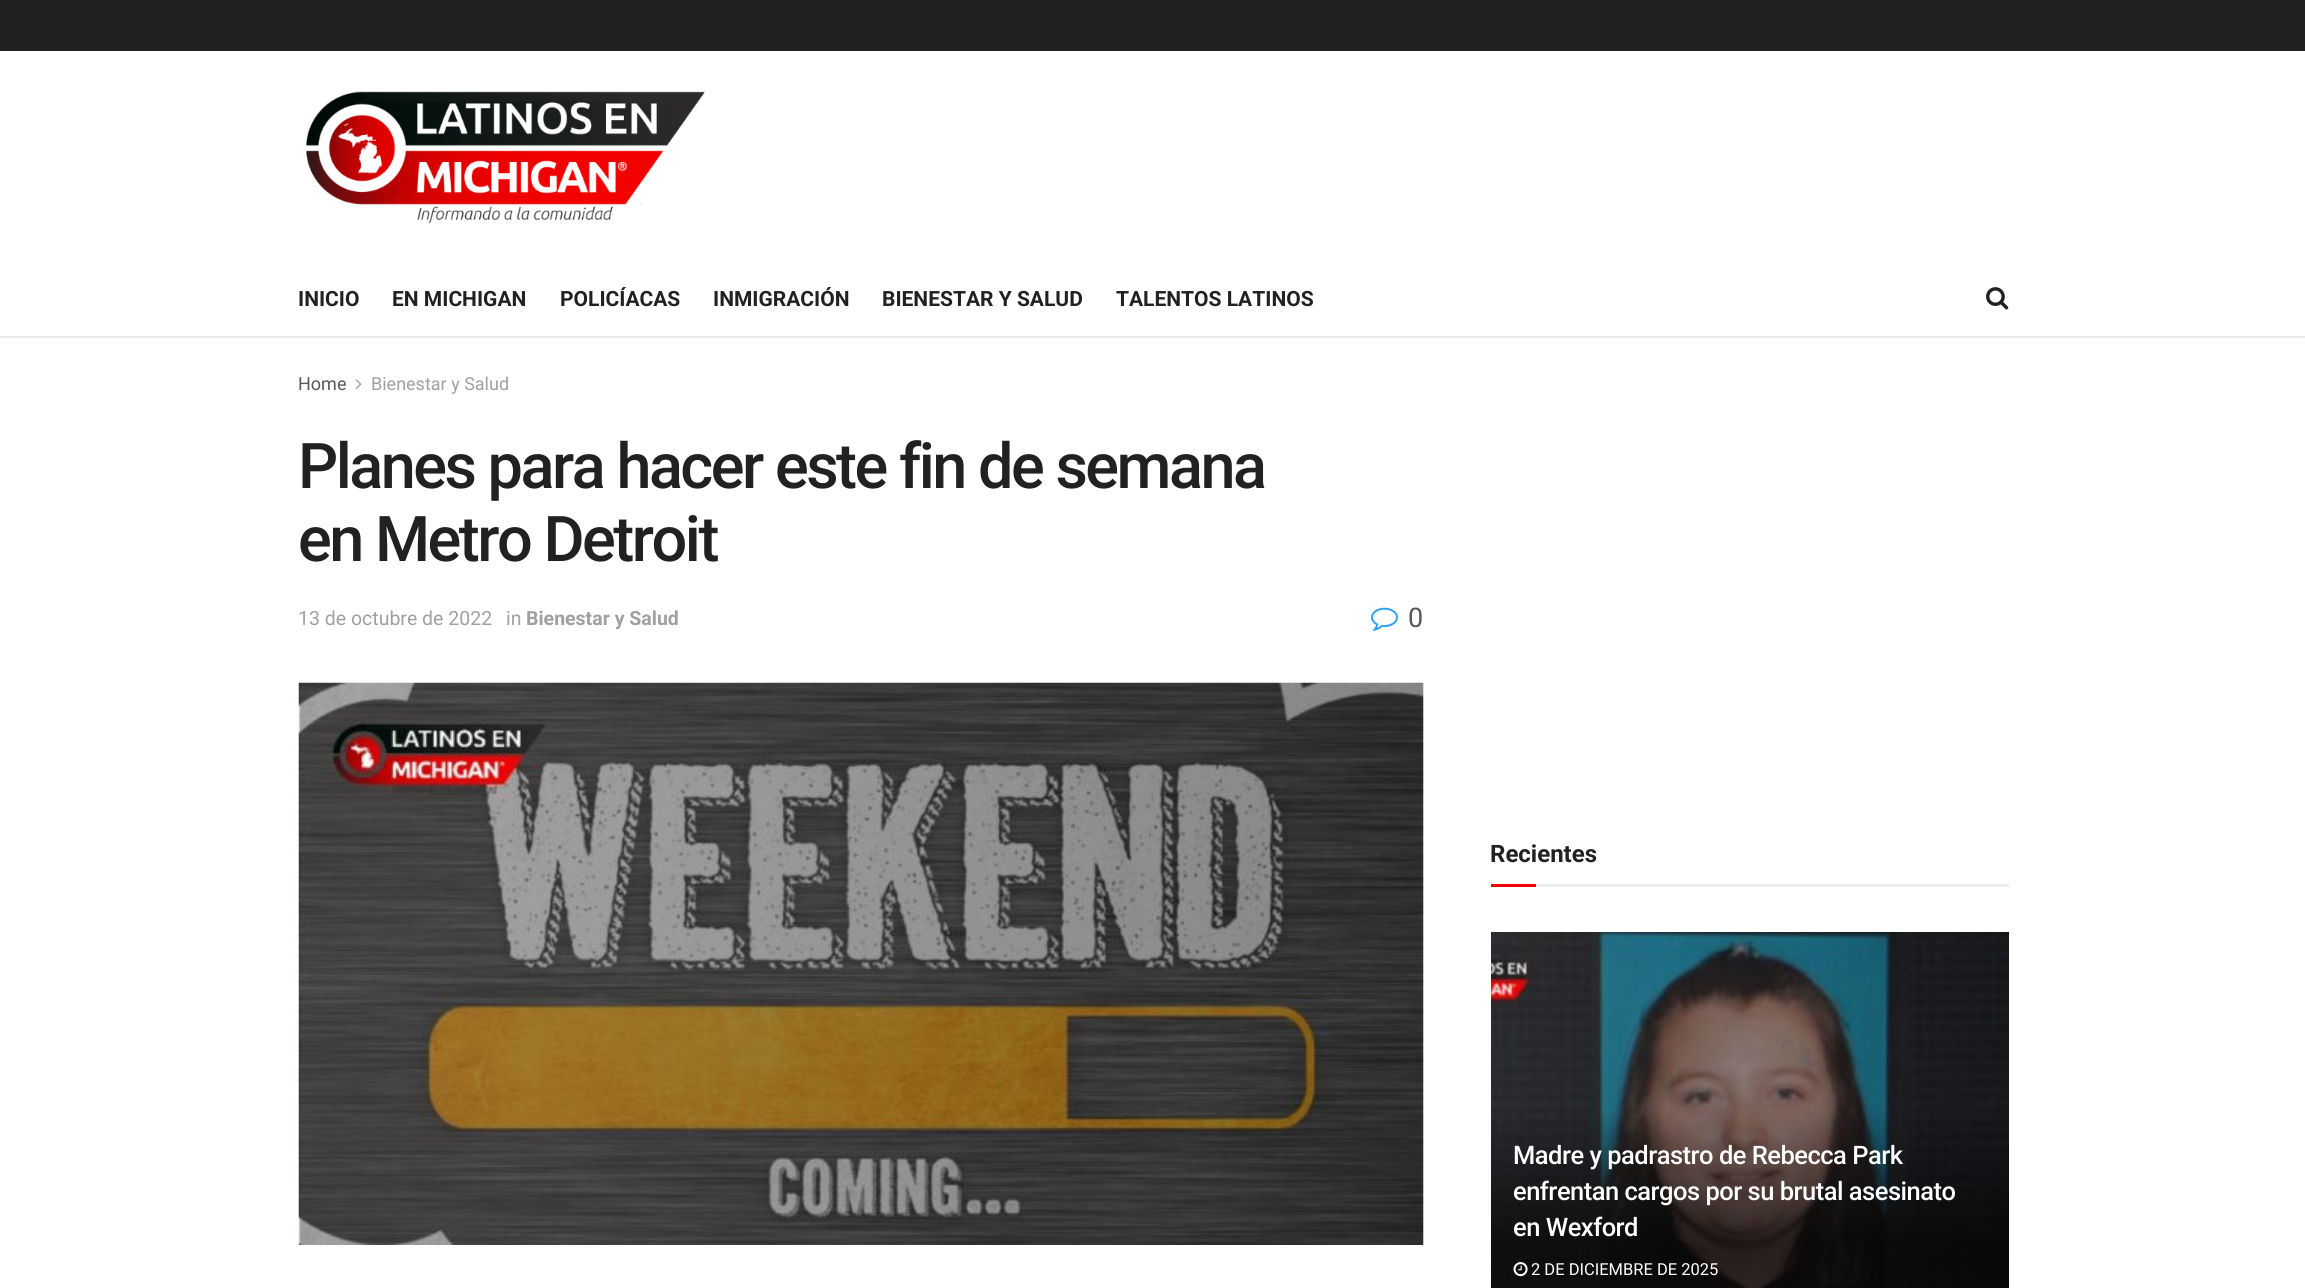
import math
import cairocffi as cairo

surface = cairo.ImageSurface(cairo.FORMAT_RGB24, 2305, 1288)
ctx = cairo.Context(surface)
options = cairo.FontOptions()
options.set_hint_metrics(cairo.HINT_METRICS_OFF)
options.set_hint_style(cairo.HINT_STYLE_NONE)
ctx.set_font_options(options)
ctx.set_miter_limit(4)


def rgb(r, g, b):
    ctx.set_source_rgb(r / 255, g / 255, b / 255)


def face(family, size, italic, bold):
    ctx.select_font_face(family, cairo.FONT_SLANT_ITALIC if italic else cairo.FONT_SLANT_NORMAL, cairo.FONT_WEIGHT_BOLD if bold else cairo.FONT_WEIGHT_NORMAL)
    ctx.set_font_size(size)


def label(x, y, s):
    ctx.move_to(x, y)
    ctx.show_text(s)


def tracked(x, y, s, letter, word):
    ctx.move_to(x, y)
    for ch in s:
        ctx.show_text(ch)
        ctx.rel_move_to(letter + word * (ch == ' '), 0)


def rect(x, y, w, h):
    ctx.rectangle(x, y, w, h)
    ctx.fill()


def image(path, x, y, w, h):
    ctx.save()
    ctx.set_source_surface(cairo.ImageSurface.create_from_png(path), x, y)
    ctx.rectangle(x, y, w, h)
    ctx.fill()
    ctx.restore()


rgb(255, 255, 255)
ctx.paint()
rgb(33, 33, 33)
rect(0, 0, 2305, 51)
image('image0.png', 306, 91, 399, 133)
rgb(232, 232, 232)
rect(0, 336, 2305, 2)
face('Roboto', 21, 0, 1)
rgb(33, 33, 33)
label(298, 306, 'INICIO')
label(392, 306, 'EN MICHIGAN')
label(560, 306, 'POLICÍACAS')
label(713, 306, 'INMIGRACIÓN')
label(882, 306, 'BIENESTAR Y SALUD')
label(1116, 306, 'TALENTOS LATINOS')
image('image1.png', 1986, 287, 23, 23)
face('Roboto', 18, 0, 0)
rgb(83, 88, 92)
label(298, 390, 'Home')
image('image2.png', 355, 379, 7, 11)
rgb(160, 160, 160)
label(371, 390, 'Bienestar y Salud')
face('Roboto Medium', 63, 0, 0)
rgb(33, 33, 33)
tracked(298, 488, 'Planes para hacer este fin de semana', -2.5, 0)
tracked(298, 561, 'en Metro Detroit', -2.5, 0)
face('Roboto', 19.5, 0, 0)
rgb(160, 160, 160)
label(298, 625, '13 de octubre de 2022')
label(506, 625, 'in')
face('Roboto', 19.5, 0, 1)
label(526, 625, 'Bienestar y Salud')
image('image3.png', 1371, 607, 27, 24)
face('Roboto', 27, 0, 0)
rgb(83, 88, 92)
label(1408, 627, '0')
rgb(247, 247, 247)
rect(1423, 683, 1, 562)
image('image4.png', 298, 682, 1126, 563)
rgb(238, 238, 238)
rect(1536, 884, 473, 3)
face('Roboto', 24, 0, 1)
rgb(33, 33, 33)
label(1490, 862, 'Recientes')
rgb(243, 1, 0)
rect(1491, 884, 45, 3)
image('image5.png', 1491, 932, 518, 356)
face('Roboto Medium', 25.5, 0, 0)
rgb(255, 255, 255)
tracked(1513, 1164, 'Madre y padrastro de Rebecca Park', -0.5, 0)
tracked(1513, 1200, 'enfrentan cargos por su brutal asesinato', -0.5, 0)
tracked(1513, 1236, 'en Wexford', -0.5, 0)
image('image6.png', 1513, 1262, 15, 15)
face('Roboto', 16.5, 0, 0)
label(1531, 1275, '2 DE DICIEMBRE DE 2025')
surface.write_to_png('render.png')
